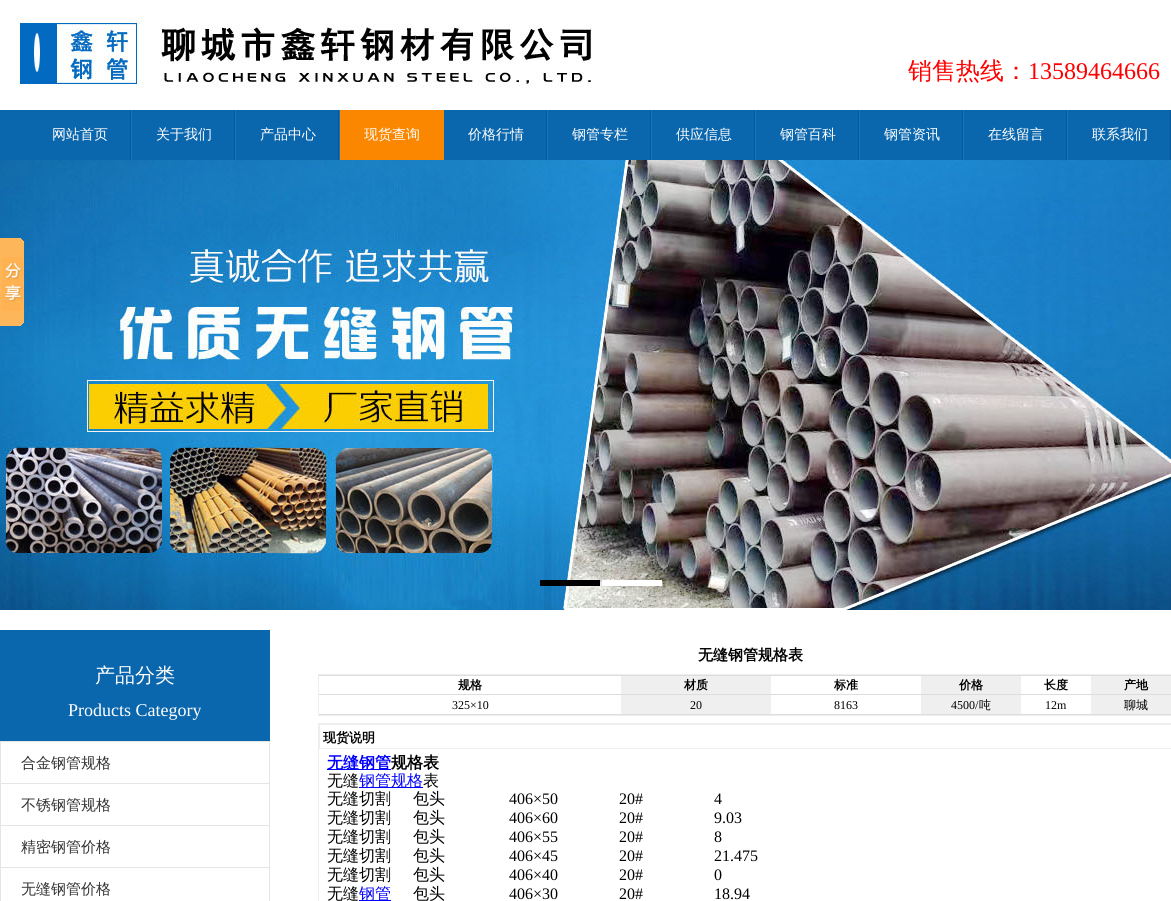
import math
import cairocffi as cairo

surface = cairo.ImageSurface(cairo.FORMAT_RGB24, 1171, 901)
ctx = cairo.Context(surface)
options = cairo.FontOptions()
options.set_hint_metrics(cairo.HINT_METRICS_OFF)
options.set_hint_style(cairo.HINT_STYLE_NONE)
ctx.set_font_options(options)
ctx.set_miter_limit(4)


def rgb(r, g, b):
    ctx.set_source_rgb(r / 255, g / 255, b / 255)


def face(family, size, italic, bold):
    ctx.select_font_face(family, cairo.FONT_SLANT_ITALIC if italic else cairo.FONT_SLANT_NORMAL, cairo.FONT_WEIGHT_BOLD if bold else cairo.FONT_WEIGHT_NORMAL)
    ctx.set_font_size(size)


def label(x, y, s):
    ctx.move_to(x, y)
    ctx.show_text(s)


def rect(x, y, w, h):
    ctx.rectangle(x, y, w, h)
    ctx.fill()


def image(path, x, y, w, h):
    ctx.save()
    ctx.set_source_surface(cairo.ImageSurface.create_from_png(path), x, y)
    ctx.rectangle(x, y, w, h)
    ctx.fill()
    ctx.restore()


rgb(255, 255, 255)
ctx.paint()
image('image0.png', 16, 16, 576, 72)
face('WenQuanYi Zen Hei Medium', 24, 0, 0)
rgb(255, 0, 0)
label(908, 79, '销售热线：')
face('Liberation Serif', 24, 0, 0)
label(1028, 79, '13589464666')
rgb(10, 102, 173)
rect(0, 110, 1170, 50)
image('image1.png', 130, 110, 2, 50)
face('WenQuanYi Zen Hei Medium', 14, 0, 0)
rgb(255, 255, 255)
label(52, 139, '网站首页')
image('image1.png', 234, 110, 2, 50)
label(156, 139, '关于我们')
image('image1.png', 338, 110, 2, 50)
label(260, 139, '产品中心')
rgb(251, 135, 0)
rect(340, 110, 104, 50)
rgb(255, 255, 255)
label(364, 139, '现货查询')
image('image1.png', 546, 110, 2, 50)
label(468, 139, '价格行情')
image('image1.png', 650, 110, 2, 50)
label(572, 139, '钢管专栏')
image('image1.png', 754, 110, 2, 50)
label(676, 139, '供应信息')
image('image1.png', 858, 110, 2, 50)
label(780, 139, '钢管百科')
image('image1.png', 962, 110, 2, 50)
label(884, 139, '钢管资讯')
image('image1.png', 1066, 110, 2, 50)
label(988, 139, '在线留言')
rgb(5, 88, 154)
rect(1170, 110, 1, 50)
rgb(255, 255, 255)
label(1092, 139, '联系我们')
image('image2.png', 0, 160, 1171, 450)
rgb(0, 0, 0)
rect(540, 580, 60, 6)
rgb(255, 255, 255)
rect(602, 580, 60, 6)
image('image3.png', 0, 238, 24, 88)
rgb(10, 102, 173)
rect(0, 630, 270, 111)
face('WenQuanYi Zen Hei Medium', 20, 0, 0)
rgb(255, 255, 255)
label(95, 682, '产品分类')
face('Liberation Serif', 18, 0, 0)
label(68, 716, 'Products Category')
ctx.rectangle(0.5, 741.5, 269, 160)
rgb(229, 229, 229)
ctx.set_line_width(1)
ctx.stroke()
rect(1, 783, 268, 1)
face('WenQuanYi Zen Hei Medium', 15, 0, 0)
rgb(51, 51, 51)
label(21, 768, '合金钢管规格')
rgb(229, 229, 229)
rect(1, 825, 268, 1)
rgb(51, 51, 51)
label(21, 810, '不锈钢管规格')
rgb(229, 229, 229)
rect(1, 867, 268, 1)
rgb(51, 51, 51)
label(21, 852, '精密钢管价格')
label(21, 894, '无缝钢管价格')
face('WenQuanYi Zen Hei', 15, 0, 1)
rgb(0, 0, 0)
label(698, 660, '无缝钢管规格表')
ctx.rectangle(318.5, 674.5, 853, 41)
rgb(238, 238, 238)
ctx.stroke()
rgb(221, 221, 221)
rect(319, 675, 852, 1)
rect(319, 694, 852, 1)
face('WenQuanYi Zen Hei', 12, 0, 1)
rgb(0, 0, 0)
label(458, 689, '规格')
rgb(239, 239, 239)
rect(621, 676, 150, 18)
rgb(0, 0, 0)
label(684, 689, '材质')
label(834, 689, '标准')
rgb(239, 239, 239)
rect(921, 676, 100, 18)
rgb(0, 0, 0)
label(959, 689, '价格')
label(1044, 689, '长度')
rgb(239, 239, 239)
rect(1091, 676, 80, 18)
rgb(0, 0, 0)
label(1124, 689, '产地')
rgb(221, 221, 221)
rect(319, 714, 852, 1)
face('Liberation Serif', 12, 0, 0)
rgb(0, 0, 0)
label(452, 709, '325×10')
rgb(239, 239, 239)
rect(621, 695, 150, 19)
rgb(0, 0, 0)
label(690, 709, '20')
label(834, 709, '8163')
rgb(239, 239, 239)
rect(921, 695, 100, 19)
rgb(0, 0, 0)
label(951, 709, '4500/')
face('WenQuanYi Zen Hei Medium', 12, 0, 0)
label(979, 709, '吨')
face('Liberation Serif', 12, 0, 0)
label(1045, 709, '12m')
rgb(239, 239, 239)
rect(1091, 695, 80, 19)
face('WenQuanYi Zen Hei Medium', 12, 0, 0)
rgb(0, 0, 0)
label(1124, 709, '聊城')
ctx.rectangle(318.5, 723.5, 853, 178)
rgb(238, 238, 238)
ctx.stroke()
ctx.rectangle(319.5, 724.5, 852, 24)
ctx.stroke()
face('WenQuanYi Zen Hei', 13, 0, 1)
rgb(0, 0, 0)
label(323, 742, '现货说明')
rgb(0, 0, 255)
rect(327, 769, 64, 1)
face('WenQuanYi Zen Hei', 16, 0, 1)
label(327, 768, '无缝钢管')
rgb(0, 0, 0)
label(391, 768, '规格表')
face('WenQuanYi Zen Hei Medium', 16, 0, 0)
label(327, 786, '无缝')
rgb(0, 0, 255)
rect(359, 787, 64, 1)
label(359, 786, '钢管规格')
rgb(0, 0, 0)
label(423, 786, '表')
label(327, 804, '无缝切割')
label(413, 804, '包头')
face('Liberation Serif', 16, 0, 0)
label(509, 804, '406×50')
label(619, 804, '20#')
label(714, 804, '4')
face('WenQuanYi Zen Hei Medium', 16, 0, 0)
label(327, 823, '无缝切割')
label(413, 823, '包头')
face('Liberation Serif', 16, 0, 0)
label(509, 823, '406×60')
label(619, 823, '20#')
label(714, 823, '9.03')
face('WenQuanYi Zen Hei Medium', 16, 0, 0)
label(327, 842, '无缝切割')
label(413, 842, '包头')
face('Liberation Serif', 16, 0, 0)
label(509, 842, '406×55')
label(619, 842, '20#')
label(714, 842, '8')
face('WenQuanYi Zen Hei Medium', 16, 0, 0)
label(327, 861, '无缝切割')
label(413, 861, '包头')
face('Liberation Serif', 16, 0, 0)
label(509, 861, '406×45')
label(619, 861, '20#')
label(714, 861, '21.475')
face('WenQuanYi Zen Hei Medium', 16, 0, 0)
label(327, 880, '无缝切割')
label(413, 880, '包头')
face('Liberation Serif', 16, 0, 0)
label(509, 880, '406×40')
label(619, 880, '20#')
label(714, 880, '0')
face('WenQuanYi Zen Hei Medium', 16, 0, 0)
label(327, 899, '无缝')
rgb(0, 0, 255)
rect(359, 900, 32, 1)
label(359, 899, '钢管')
rgb(0, 0, 0)
label(413, 899, '包头')
face('Liberation Serif', 16, 0, 0)
label(509, 899, '406×30')
label(619, 899, '20#')
label(714, 899, '18.94')
surface.write_to_png('render.png')
